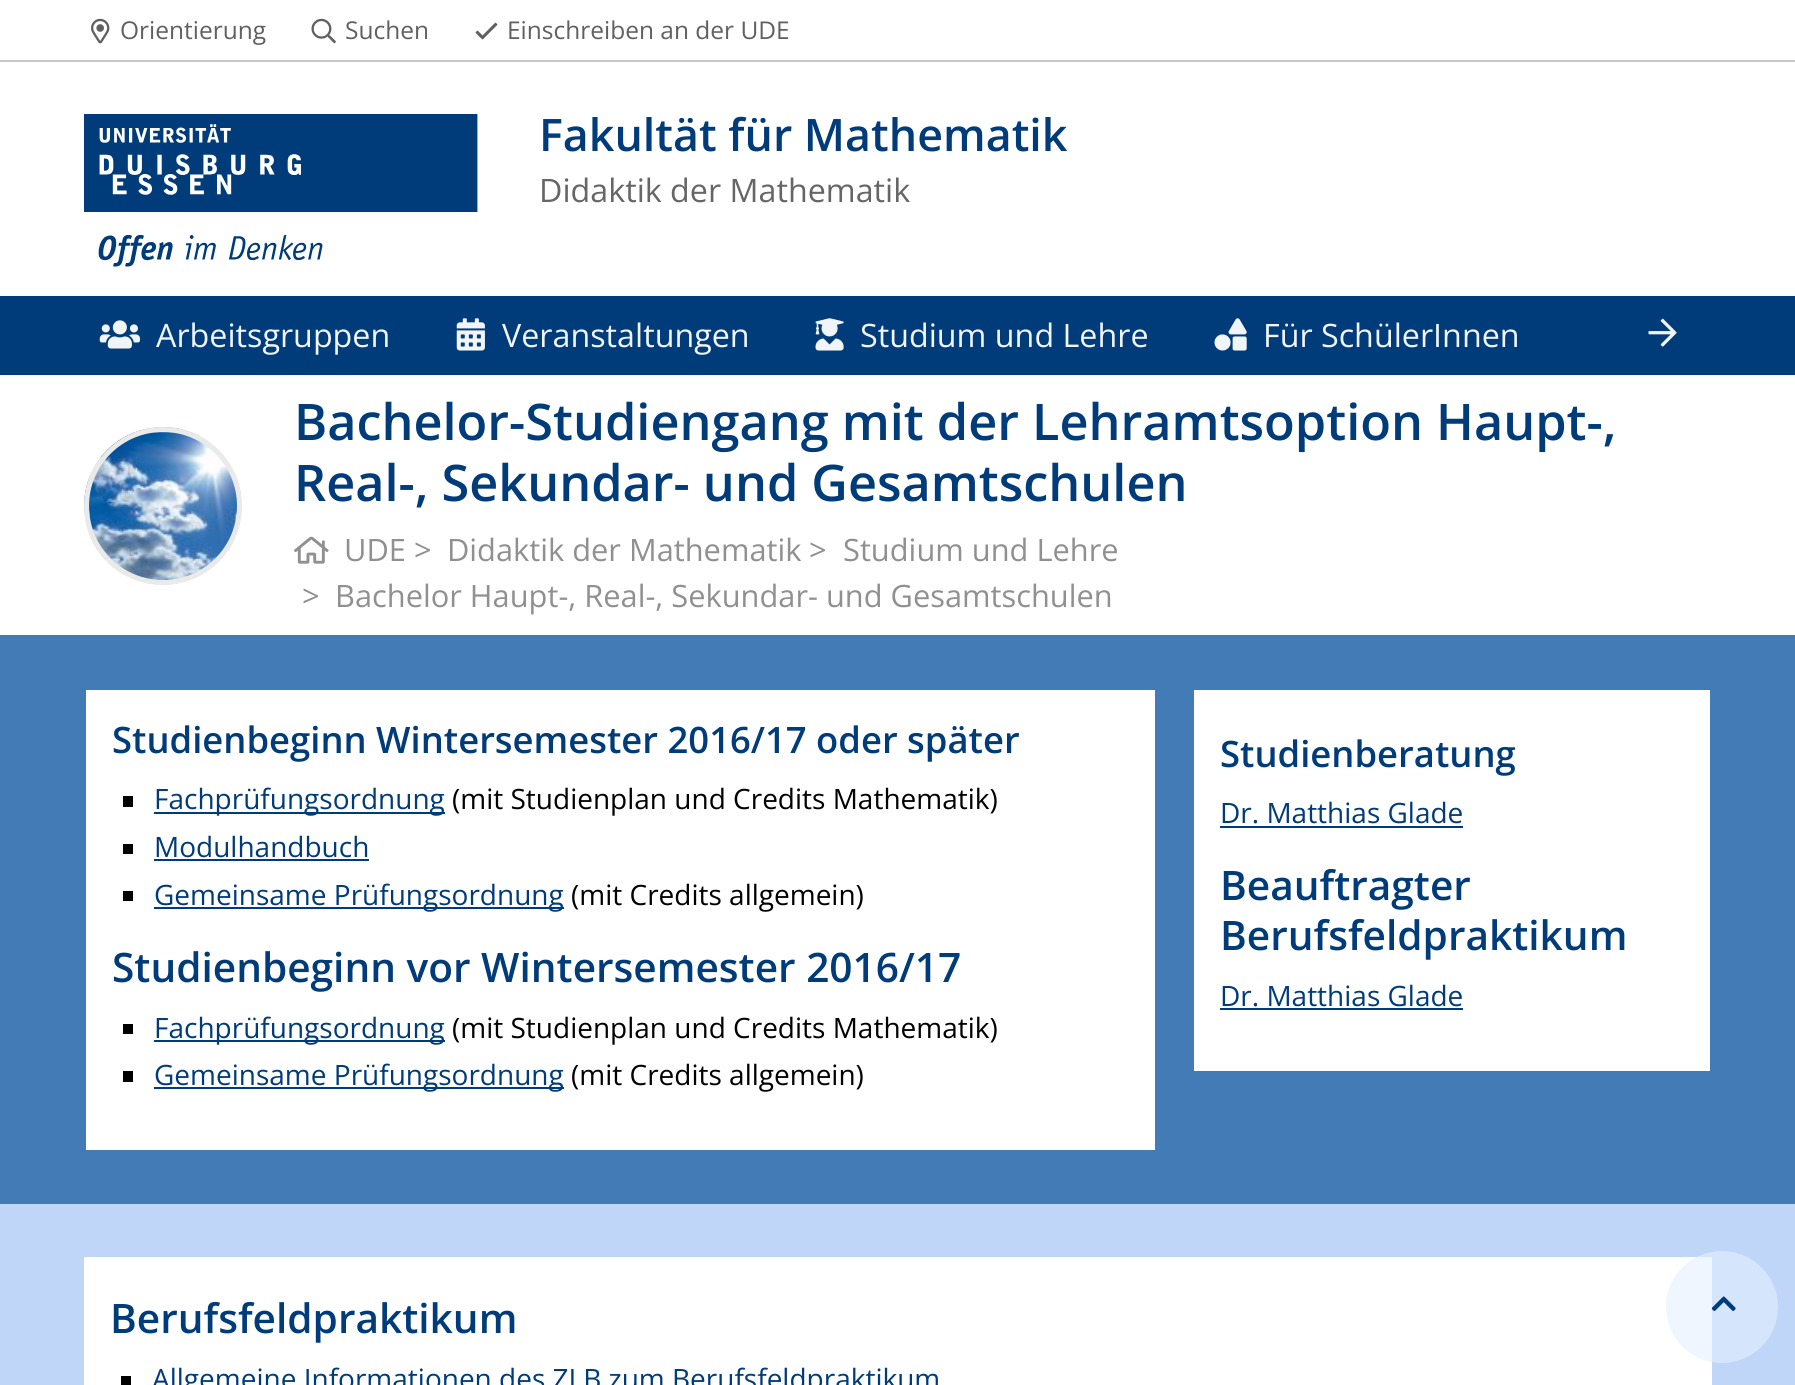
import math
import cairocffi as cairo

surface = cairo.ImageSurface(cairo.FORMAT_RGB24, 1795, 1385)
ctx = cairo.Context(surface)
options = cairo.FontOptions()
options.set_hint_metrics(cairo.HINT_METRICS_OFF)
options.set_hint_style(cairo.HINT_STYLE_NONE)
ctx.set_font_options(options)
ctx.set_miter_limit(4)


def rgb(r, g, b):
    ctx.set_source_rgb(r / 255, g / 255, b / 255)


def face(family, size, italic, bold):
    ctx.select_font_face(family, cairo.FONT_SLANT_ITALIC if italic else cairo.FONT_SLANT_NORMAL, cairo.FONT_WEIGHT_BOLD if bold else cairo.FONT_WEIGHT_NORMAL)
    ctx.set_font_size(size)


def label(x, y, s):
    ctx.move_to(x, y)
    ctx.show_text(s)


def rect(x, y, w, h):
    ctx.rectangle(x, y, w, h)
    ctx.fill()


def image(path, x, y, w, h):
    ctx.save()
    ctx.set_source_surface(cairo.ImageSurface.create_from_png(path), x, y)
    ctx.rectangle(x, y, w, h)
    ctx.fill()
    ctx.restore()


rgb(255, 255, 255)
ctx.paint()
rgb(0, 59, 122)
rect(0, 296, 1795, 79)
rgb(198, 198, 198)
rect(0, 60, 1795, 2)
image('image0.png', 91, 18, 19, 26)
face('Open Sans', 24.5, 0, 0)
rgb(96, 96, 96)
label(120, 39, 'Orientierung')
image('image1.png', 311, 18, 25, 26)
label(345, 39, 'Suchen')
image('image2.png', 475, 22, 23, 18)
label(507, 39, 'Einschreiben an der UDE')
image('image3.png', 99, 320, 41, 29)
face('Open Sans', 32.25, 0, 0)
rgb(242, 245, 248)
label(156, 347, 'Arbeitsgruppen')
image('image4.png', 456, 318, 29, 33)
label(502, 347, 'Veranstaltungen')
image('image5.png', 815, 318, 29, 33)
label(860, 347, 'Studium und Lehre')
image('image6.png', 1214, 318, 33, 33)
label(1263, 347, 'Für SchülerInnen')
image('image7.png', 1648, 318, 29, 29)
image('image8.png', 84, 114, 394, 153)
face('Open Sans SemiBold', 44.75, 0, 0)
rgb(0, 59, 122)
label(539, 151, 'Fakultät für Mathematik')
face('Open Sans', 32.25, 0, 0)
rgb(102, 102, 102)
label(539, 202, 'Didaktik der Mathematik')
image('image9.png', 84, 427, 158, 158)
ctx.arc(163, 506, 76.5, 0, 2 * math.pi)
rgb(234, 234, 234)
ctx.set_line_width(5)
ctx.stroke()
face('Open Sans SemiBold', 50.4, 0, 0)
rgb(0, 59, 122)
label(294, 440, 'Bachelor-Studiengang mit der Lehramtsoption Haupt-,')
label(294, 501, 'Real-, Sekundar- und Gesamtschulen')
image('image10.png', 294, 536, 35, 28)
face('Open Sans', 30.8, 0, 0)
rgb(144, 144, 144)
label(344, 561, 'UDE')
label(414, 561, '>')
label(447, 561, 'Didaktik der Mathematik')
label(809, 561, '>')
label(843, 561, 'Studium und Lehre')
label(302, 607, '>')
label(335, 607, 'Bachelor Haupt-, Real-, Sekundar- und Gesamtschulen')
rgb(67, 123, 182)
rect(0, 635, 1795, 569)
rgb(255, 255, 255)
rect(86, 690, 1069, 460)
face('Open Sans SemiBold', 36.4, 0, 0)
rgb(0, 59, 122)
label(112, 753, 'Studienbeginn Wintersemester 2016/17 oder später')
rgb(0, 0, 0)
rect(123, 796, 10, 11)
rgb(0, 59, 122)
rect(154, 812, 291, 2)
face('Open Sans', 28, 0, 0)
label(154, 809, 'Fachprüfungsordnung')
rgb(0, 0, 0)
label(452, 809, '(mit Studienplan und Credits Mathematik)')
rect(123, 844, 10, 10)
rgb(0, 59, 122)
label(154, 857, 'Modulhandbuch')
rect(154, 859, 215, 2)
rgb(0, 0, 0)
rect(123, 891, 10, 10)
rgb(0, 59, 122)
rect(154, 907, 410, 2)
label(154, 905, 'Gemeinsame Prüfungsordnung')
rgb(0, 0, 0)
label(571, 905, '(mit Credits allgemein)')
face('Open Sans SemiBold', 40.6, 0, 0)
rgb(0, 59, 122)
label(112, 982, 'Studienbeginn vor Wintersemester 2016/17')
rgb(0, 0, 0)
rect(123, 1024, 10, 10)
rgb(0, 59, 122)
rect(154, 1040, 291, 2)
face('Open Sans', 28, 0, 0)
label(154, 1038, 'Fachprüfungsordnung')
rgb(0, 0, 0)
label(452, 1038, '(mit Studienplan und Credits Mathematik)')
rect(123, 1071, 10, 11)
rgb(0, 59, 122)
rect(154, 1087, 410, 2)
label(154, 1085, 'Gemeinsame Prüfungsordnung')
rgb(0, 0, 0)
label(571, 1085, '(mit Credits allgemein)')
rgb(255, 255, 255)
rect(1194, 690, 516, 381)
face('Open Sans SemiBold', 36.4, 0, 0)
rgb(0, 59, 122)
label(1220, 767, 'Studienberatung')
face('Open Sans', 28, 0, 0)
label(1220, 823, 'Dr. Matthias Glade')
rect(1220, 826, 243, 2)
face('Open Sans SemiBold', 40.6, 0, 0)
label(1220, 900, 'Beauftragter')
label(1220, 950, 'Berufsfeldpraktikum')
face('Open Sans', 28, 0, 0)
label(1220, 1006, 'Dr. Matthias Glade')
rect(1220, 1008, 243, 2)
rgb(191, 214, 248)
rect(0, 1204, 1795, 181)
rgb(255, 255, 255)
rect(84, 1257, 1628, 128)
face('Open Sans SemiBold', 40.6, 0, 0)
rgb(0, 59, 122)
label(110, 1333, 'Berufsfeldpraktikum')
rgb(0, 0, 0)
rect(121, 1376, 10, 9)
face('Open Sans', 28, 0, 0)
rgb(0, 59, 122)
label(152, 1389, 'Allgemeine Informationen des ZLB zum Berufsfeldpraktikum')
ctx.set_source_rgba(0.894, 0.941, 1, 0.6)
ctx.new_path()
ctx.arc(1722, 1307, 56, 0, 2 * math.pi)
ctx.fill()
image('image11.png', 1711, 1296, 25, 15)
surface.write_to_png('render.png')
